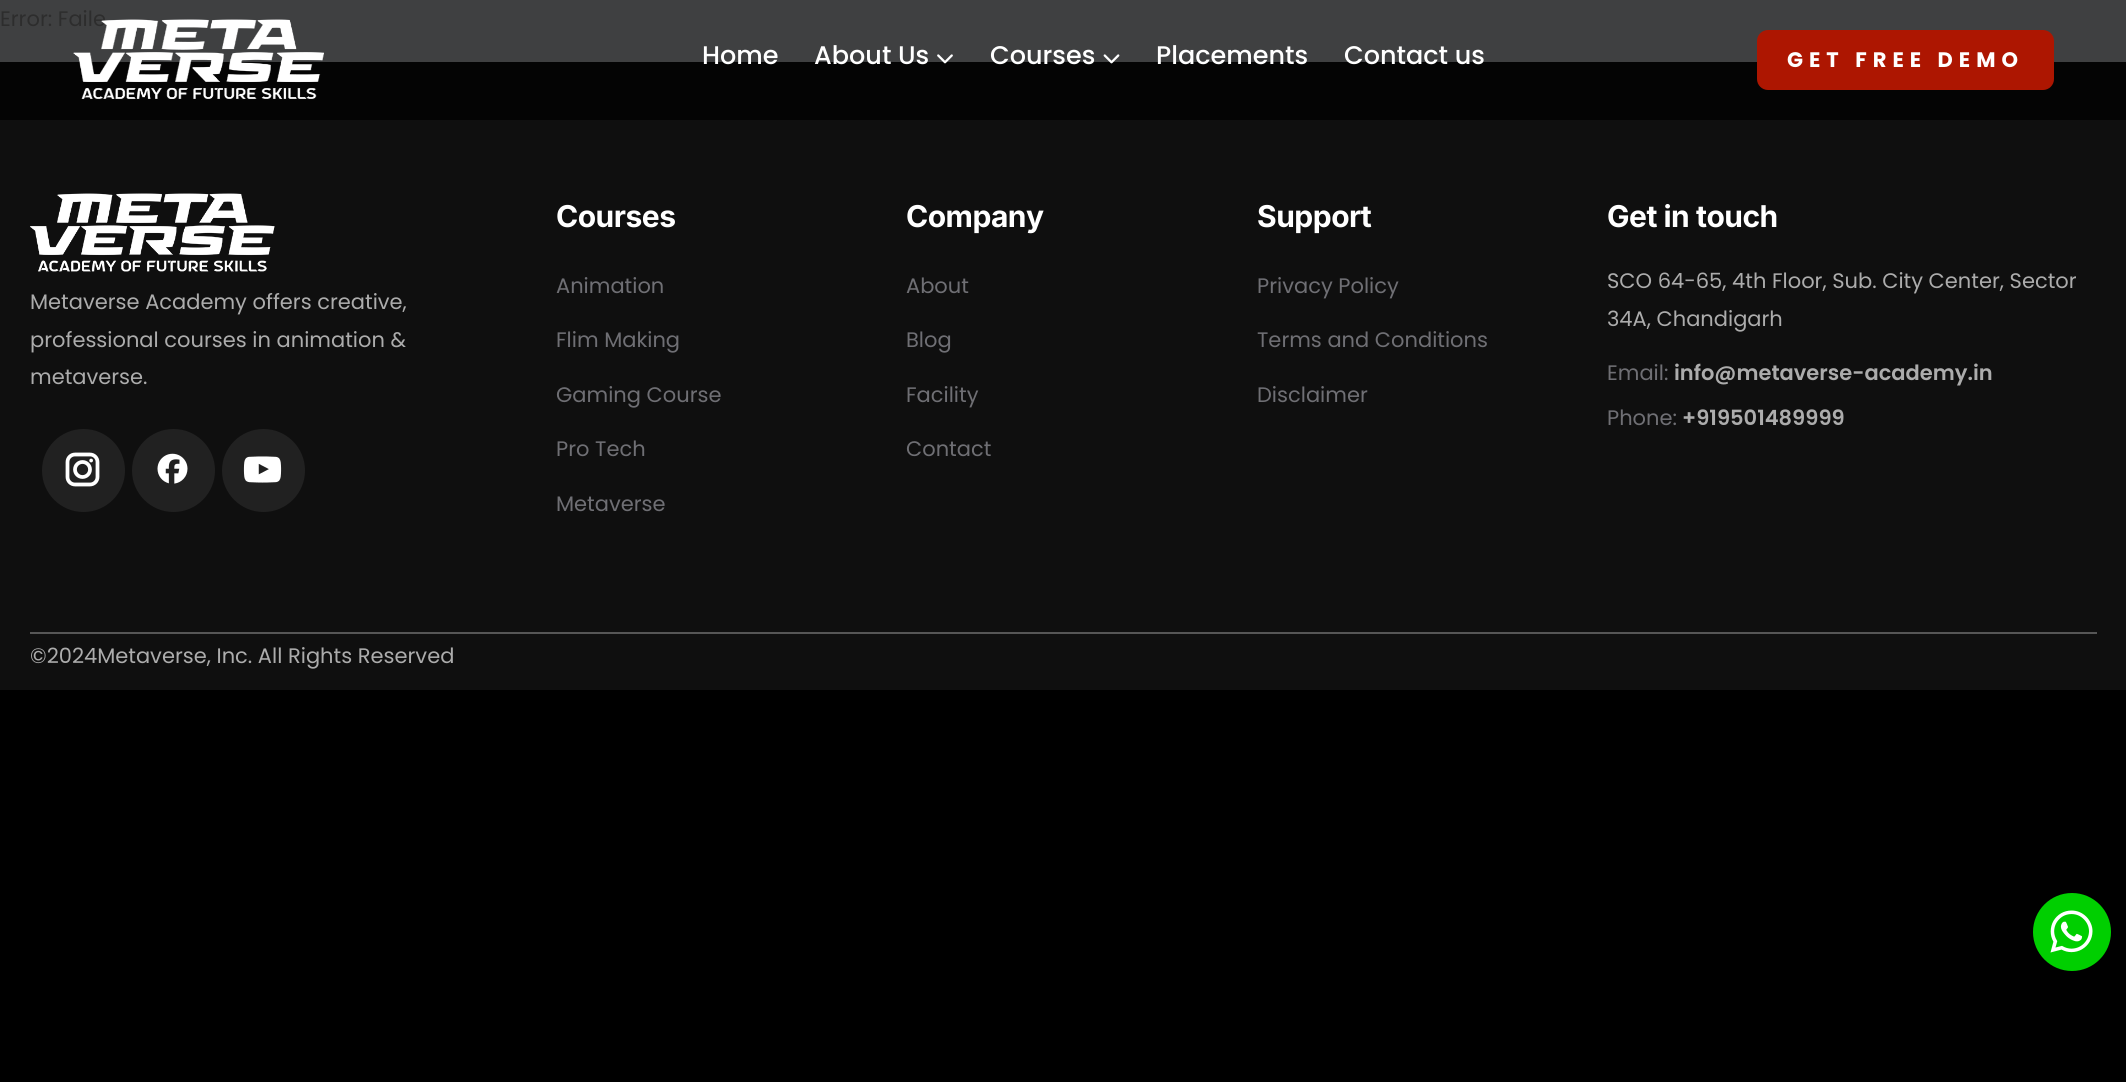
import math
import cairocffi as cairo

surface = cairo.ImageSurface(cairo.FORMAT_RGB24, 2126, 1082)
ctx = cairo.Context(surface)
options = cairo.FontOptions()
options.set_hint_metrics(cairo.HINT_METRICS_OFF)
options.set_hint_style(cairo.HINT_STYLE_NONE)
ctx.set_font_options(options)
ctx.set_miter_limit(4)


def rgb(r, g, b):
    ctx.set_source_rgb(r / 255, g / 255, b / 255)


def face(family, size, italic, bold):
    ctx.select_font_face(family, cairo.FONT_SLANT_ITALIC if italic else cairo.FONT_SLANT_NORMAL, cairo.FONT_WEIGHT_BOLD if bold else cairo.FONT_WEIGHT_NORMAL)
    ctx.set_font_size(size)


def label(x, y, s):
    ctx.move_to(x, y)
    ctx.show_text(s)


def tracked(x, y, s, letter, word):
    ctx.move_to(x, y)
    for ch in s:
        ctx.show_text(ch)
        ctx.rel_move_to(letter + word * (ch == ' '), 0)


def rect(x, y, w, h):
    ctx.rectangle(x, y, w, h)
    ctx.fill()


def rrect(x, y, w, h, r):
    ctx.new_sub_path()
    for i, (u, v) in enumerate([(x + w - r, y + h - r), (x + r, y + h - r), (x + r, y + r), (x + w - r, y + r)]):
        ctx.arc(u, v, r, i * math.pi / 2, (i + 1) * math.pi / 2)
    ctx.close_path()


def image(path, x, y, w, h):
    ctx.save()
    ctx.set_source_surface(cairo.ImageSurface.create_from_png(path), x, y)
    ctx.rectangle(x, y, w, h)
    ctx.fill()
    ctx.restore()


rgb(0, 0, 0)
ctx.paint()
rgb(63, 64, 65)
rect(0, 0, 2126, 62)
face('Poppins', 21, 0, 0)
rgb(45, 45, 45)
label(0, 26, 'Error: Faile')
rgb(4, 4, 4)
rect(0, 62, 2126, 58)
image('image0.png', 73, 19, 251, 80)
face('Poppins Medium', 25.5, 0, 0)
rgb(255, 255, 255)
label(702, 64, 'Home')
label(814, 64, 'About Us')
image('image1.png', 937, 54, 16, 10)
label(990, 64, 'Courses')
image('image2.png', 1103, 54, 17, 10)
label(1156, 64, 'Placements')
label(1344, 64, 'Contact us')
rgb(173, 22, 1)
rrect(1757, 30, 297, 60, 11)
ctx.fill()
face('Poppins', 21, 0, 1)
rgb(255, 255, 255)
tracked(1787, 67, 'GET FREE DEMO', 6, 0)
rgb(15, 15, 15)
rect(0, 120, 2126, 570)
image('image3.png', 30, 193, 245, 79)
face('Poppins', 21, 0, 0)
rgb(172, 172, 172)
label(30, 309, 'Metaverse Academy offers creative,')
label(30, 347, 'professional courses in animation &')
label(30, 384, 'metaverse.')
rgb(33, 33, 33)
ctx.new_path()
ctx.arc(83.5, 470.5, 41.5, 0, 2 * math.pi)
ctx.fill()
image('image4.png', 65, 452, 35, 35)
ctx.arc(173.5, 470.5, 41.5, 0, 2 * math.pi)
ctx.fill()
image('image5.png', 157, 453, 31, 31)
ctx.arc(263.5, 470.5, 41.5, 0, 2 * math.pi)
ctx.fill()
image('image6.png', 243, 456, 39, 27)
face('Inter', 30, 0, 1)
rgb(255, 255, 255)
tracked(556, 227, 'Courses', -0.5, 0)
face('Poppins', 21, 0, 0)
rgb(111, 111, 116)
label(556, 293, 'Animation')
label(556, 347, 'Flim Making')
label(556, 402, 'Gaming Course')
label(556, 456, 'Pro Tech')
label(556, 511, 'Metaverse')
face('Inter', 30, 0, 1)
rgb(255, 255, 255)
tracked(906, 227, 'Company', -0.5, 0)
face('Poppins', 21, 0, 0)
rgb(111, 111, 116)
label(906, 293, 'About')
label(906, 347, 'Blog')
label(906, 402, 'Facility')
label(906, 456, 'Contact')
face('Inter', 30, 0, 1)
rgb(255, 255, 255)
tracked(1257, 227, 'Support', -0.5, 0)
face('Poppins', 21, 0, 0)
rgb(111, 111, 116)
label(1257, 293, 'Privacy Policy')
label(1257, 347, 'Terms and Conditions')
label(1257, 402, 'Disclaimer')
face('Inter', 30, 0, 1)
rgb(255, 255, 255)
tracked(1607, 227, 'Get in touch', -0.5, 0)
face('Poppins', 21, 0, 0)
rgb(172, 172, 172)
label(1607, 288, 'SCO 64-65, 4th Floor, Sub. City Center, Sector')
label(1607, 326, '34A, Chandigarh')
rgb(111, 111, 116)
label(1607, 380, 'Email:')
face('Poppins SemiBold', 21, 0, 0)
rgb(172, 172, 172)
label(1674, 380, 'info@metaverse-academy.in')
face('Poppins', 21, 0, 0)
rgb(111, 111, 116)
label(1607, 425, 'Phone:')
face('Poppins SemiBold', 21, 0, 0)
rgb(172, 172, 172)
label(1682, 425, '+919501489999')
rgb(86, 86, 86)
rect(30, 632, 2067, 2)
face('Poppins', 21, 0, 0)
rgb(172, 172, 172)
label(30, 663, '©2024Metaverse, Inc. All Rights Reserved')
rgb(0, 207, 0)
ctx.new_path()
ctx.arc(2072, 932, 39, 0, 2 * math.pi)
ctx.fill()
image('image7.png', 2050, 910, 43, 43)
surface.write_to_png('render.png')
